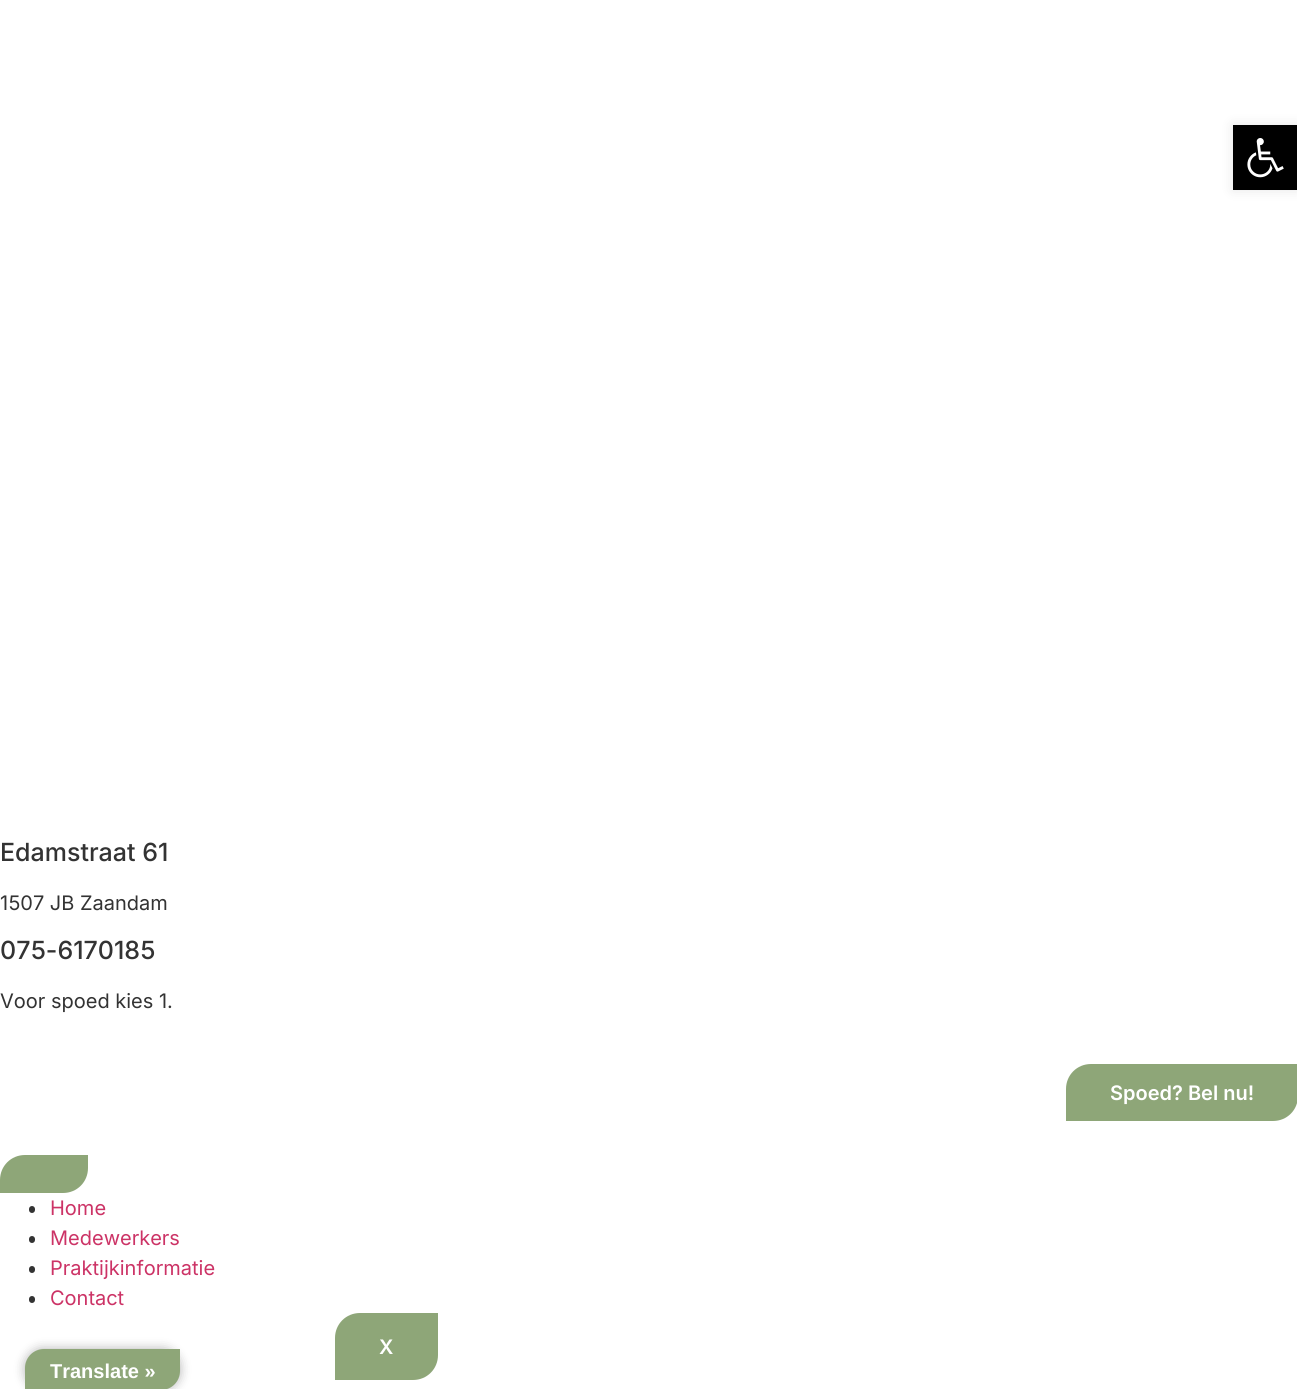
import math
import cairocffi as cairo

surface = cairo.ImageSurface(cairo.FORMAT_RGB24, 1297, 1389)
ctx = cairo.Context(surface)
options = cairo.FontOptions()
options.set_hint_metrics(cairo.HINT_METRICS_OFF)
options.set_hint_style(cairo.HINT_STYLE_NONE)
ctx.set_font_options(options)
ctx.set_miter_limit(4)


def rgb(r, g, b):
    ctx.set_source_rgb(r / 255, g / 255, b / 255)


def face(family, size, italic, bold):
    ctx.select_font_face(family, cairo.FONT_SLANT_ITALIC if italic else cairo.FONT_SLANT_NORMAL, cairo.FONT_WEIGHT_BOLD if bold else cairo.FONT_WEIGHT_NORMAL)
    ctx.set_font_size(size)


def label(x, y, s):
    ctx.move_to(x, y)
    ctx.show_text(s)


def rect(x, y, w, h):
    ctx.rectangle(x, y, w, h)
    ctx.fill()


def rrect(x, y, w, h, r):
    ctx.new_sub_path()
    for i, (u, v) in enumerate([(x + w - r, y + h - r), (x + r, y + h - r), (x + r, y + r), (x + w - r, y + r)]):
        ctx.arc(u, v, r, i * math.pi / 2, (i + 1) * math.pi / 2)
    ctx.close_path()


def soft_shadow(x, y, w, h, r, blur, alpha):
    ctx.push_group_with_content(cairo.CONTENT_ALPHA)
    ctx.set_operator(cairo.OPERATOR_SOURCE)
    for i in range(15, -16, -2):
        e = blur * i / 6
        if min(w, h) + 2 * e > 0:
            ctx.set_source_rgba(0, 0, 0, alpha * math.erfc((i - 1) / 8.5) / 2)
            rrect(x - e, y - e, w + 2 * e, h + 2 * e, max(0, min(r + e + blur * .6, min(w, h) / 2 + e)))
            ctx.fill()
    ctx.mask(ctx.pop_group())


def image(path, x, y, w, h):
    ctx.save()
    ctx.set_source_surface(cairo.ImageSurface.create_from_png(path), x, y)
    ctx.rectangle(x, y, w, h)
    ctx.fill()
    ctx.restore()


rgb(255, 255, 255)
ctx.paint()
rgb(0, 0, 0)
soft_shadow(1233, 125, 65, 65, 0, 6, 0.1)
rgb(0, 0, 0)
rect(1233, 125, 64, 65)
image('image0.png', 1247, 138, 37, 40)
face('Inter Medium', 25, 0, 0)
rgb(51, 51, 51)
label(0, 861, 'Edamstraat 61')
face('Inter', 20, 0, 0)
label(0, 910, '1507 JB Zaandam')
face('Inter Medium', 25, 0, 0)
label(0, 959, '075-6170185')
face('Inter', 20, 0, 0)
label(0, 1008, 'Voor spoed kies 1.')
rgb(142, 166, 120)
ctx.new_path()
ctx.move_to(1091, 1064)
ctx.line_to(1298, 1064)
ctx.line_to(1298, 1096)
ctx.curve_to(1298, 1110, 1287, 1121, 1273, 1121)
ctx.line_to(1066, 1121)
ctx.line_to(1066, 1089)
ctx.curve_to(1066, 1075, 1077, 1064, 1091, 1064)
ctx.close_path()
ctx.fill()
face('Inter SemiBold', 20, 0, 0)
rgb(255, 255, 255)
label(1110, 1100, 'Spoed? Bel nu!')
rgb(142, 166, 120)
ctx.new_path()
ctx.move_to(25, 1155)
ctx.line_to(88, 1155)
ctx.line_to(88, 1168)
ctx.curve_to(88, 1182, 77, 1193, 63, 1193)
ctx.line_to(0, 1193)
ctx.line_to(0, 1180)
ctx.curve_to(0, 1166, 11, 1155, 25, 1155)
ctx.close_path()
ctx.fill()
rgb(51, 51, 51)
rrect(29, 1206, 6, 7, 3)
ctx.fill()
face('Inter', 20, 0, 0)
rgb(204, 51, 102)
label(50, 1215, 'Home')
rgb(51, 51, 51)
rrect(29, 1236, 6, 7, 3)
ctx.fill()
rgb(204, 51, 102)
label(50, 1245, 'Medewerkers')
rgb(51, 51, 51)
rrect(29, 1266, 6, 7, 3)
ctx.fill()
rgb(204, 51, 102)
label(50, 1275, 'Praktijkinformatie')
rgb(51, 51, 51)
rrect(29, 1296, 6, 7, 3)
ctx.fill()
rgb(204, 51, 102)
label(50, 1305, 'Contact')
rgb(142, 166, 120)
ctx.new_path()
ctx.move_to(360, 1313)
ctx.line_to(438, 1313)
ctx.line_to(438, 1355)
ctx.curve_to(438, 1369, 427, 1380, 413, 1380)
ctx.line_to(335, 1380)
ctx.line_to(335, 1338)
ctx.curve_to(335, 1324, 346, 1313, 360, 1313)
ctx.close_path()
ctx.fill()
face('Inter SemiBold', 20, 0, 0)
rgb(255, 255, 255)
label(379, 1354, 'X')
rgb(0, 0, 0)
soft_shadow(25, 1349, 155, 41, 19, 5.5, 0.3)
rgb(142, 166, 120)
ctx.new_path()
ctx.move_to(44, 1349)
ctx.line_to(180, 1349)
ctx.line_to(180, 1371)
ctx.curve_to(180, 1381.5, 171.5, 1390, 161, 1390)
ctx.line_to(25, 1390)
ctx.line_to(25, 1368)
ctx.curve_to(25, 1357.5, 33.5, 1349, 44, 1349)
ctx.close_path()
ctx.fill()
face('Liberation Sans', 20, 0, 1)
rgb(255, 255, 255)
label(50, 1378, 'Translate »')
surface.write_to_png('render.png')
